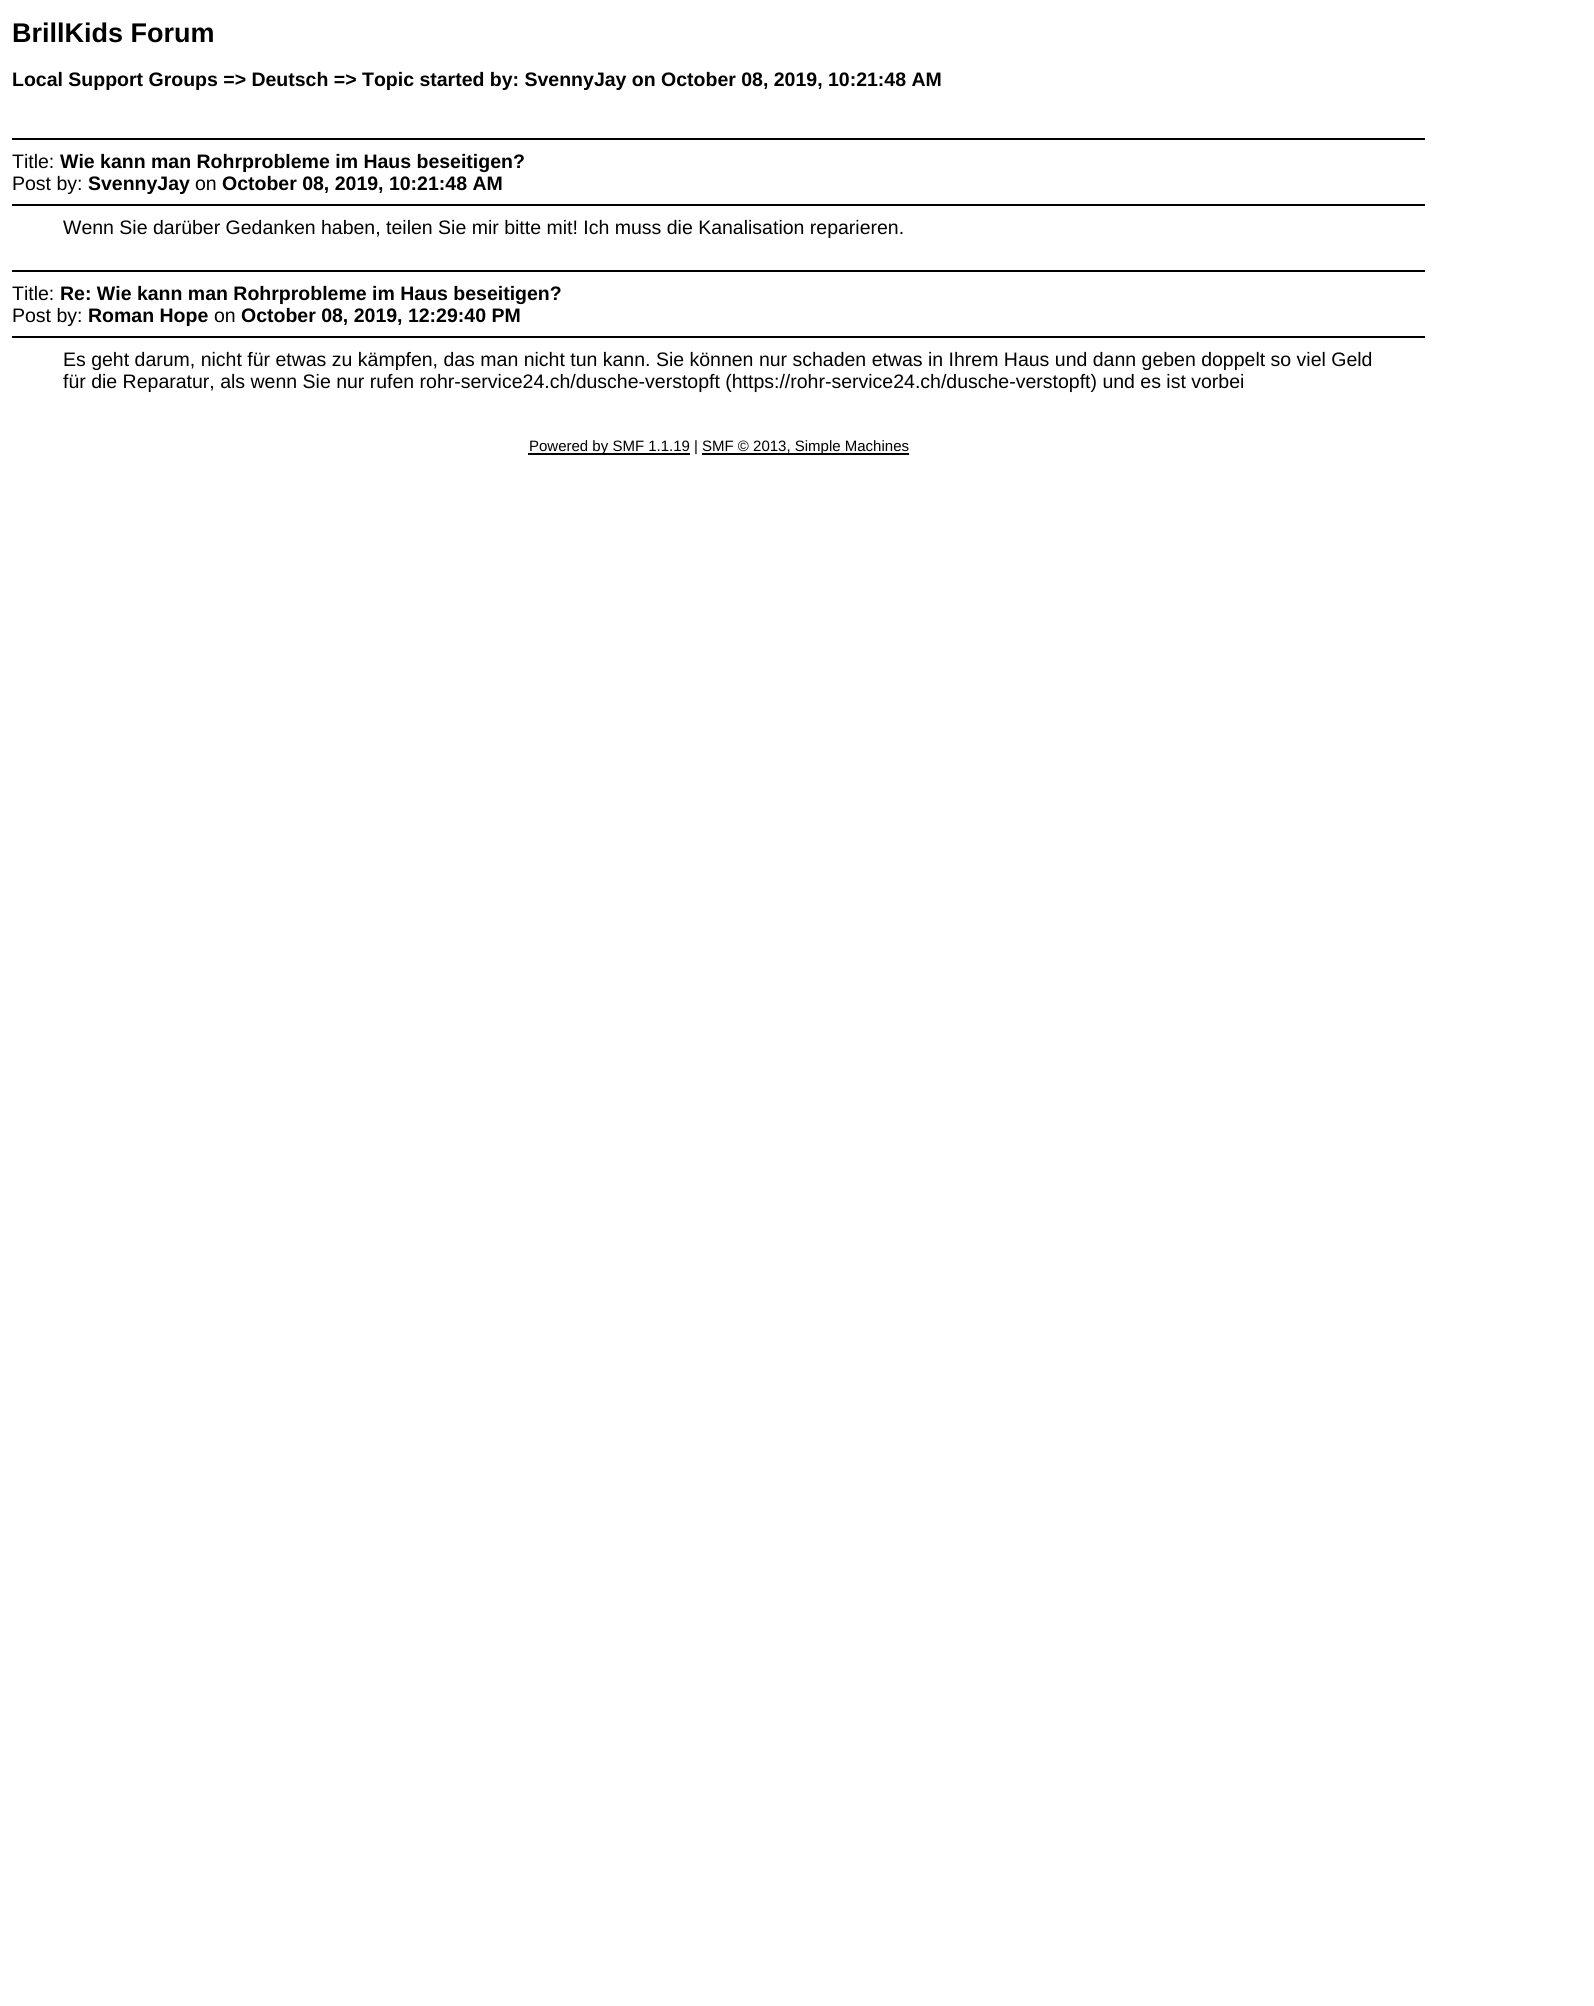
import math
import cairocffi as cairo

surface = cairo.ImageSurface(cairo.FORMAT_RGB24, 1594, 2006)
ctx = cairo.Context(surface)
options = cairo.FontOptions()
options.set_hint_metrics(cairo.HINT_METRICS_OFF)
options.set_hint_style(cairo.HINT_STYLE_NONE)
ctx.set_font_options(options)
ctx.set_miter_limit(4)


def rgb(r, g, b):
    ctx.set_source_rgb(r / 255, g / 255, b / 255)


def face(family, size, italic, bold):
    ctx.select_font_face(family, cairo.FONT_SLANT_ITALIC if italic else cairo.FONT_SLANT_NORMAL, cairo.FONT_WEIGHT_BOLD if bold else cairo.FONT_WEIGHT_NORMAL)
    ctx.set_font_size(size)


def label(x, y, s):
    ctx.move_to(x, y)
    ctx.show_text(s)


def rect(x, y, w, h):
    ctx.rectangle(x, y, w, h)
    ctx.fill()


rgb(255, 255, 255)
ctx.paint()
face('Liberation Sans', 27, 0, 1)
rgb(0, 0, 0)
label(12, 42, 'BrillKids Forum')
face('Liberation Sans', 19.5, 0, 1)
label(12, 86, 'Local Support Groups => Deutsch => Topic started by: SvennyJay on October 08, 2019, 10:21:48 AM')
rect(12, 138, 1413, 2)
face('Liberation Sans', 19.5, 0, 0)
label(12, 168, 'Title:')
face('Liberation Sans', 19.5, 0, 1)
label(60, 168, 'Wie kann man Rohrprobleme im Haus beseitigen?')
face('Liberation Sans', 19.5, 0, 0)
label(12, 190, 'Post by:')
face('Liberation Sans', 19.5, 0, 1)
label(88, 190, 'SvennyJay')
face('Liberation Sans', 19.5, 0, 0)
label(195, 190, 'on')
face('Liberation Sans', 19.5, 0, 1)
label(222, 190, 'October 08, 2019, 10:21:48 AM')
rect(12, 204, 1413, 2)
face('Liberation Sans', 19.5, 0, 0)
label(63, 234, 'Wenn Sie darüber Gedanken haben, teilen Sie mir bitte mit! Ich muss die Kanalisation reparieren.')
rect(12, 270, 1413, 2)
label(12, 300, 'Title:')
face('Liberation Sans', 19.5, 0, 1)
label(60, 300, 'Re: Wie kann man Rohrprobleme im Haus beseitigen?')
face('Liberation Sans', 19.5, 0, 0)
label(12, 322, 'Post by:')
face('Liberation Sans', 19.5, 0, 1)
label(88, 322, 'Roman Hope')
face('Liberation Sans', 19.5, 0, 0)
label(214, 322, 'on')
face('Liberation Sans', 19.5, 0, 1)
label(241, 322, 'October 08, 2019, 12:29:40 PM')
rect(12, 336, 1413, 2)
face('Liberation Sans', 19.5, 0, 0)
label(63, 366, 'Es geht darum, nicht für etwas zu kämpfen, das man nicht tun kann. Sie können nur schaden etwas in Ihrem Haus und dann geben doppelt so viel Geld')
label(63, 388, 'für die Reparatur, als wenn Sie nur rufen rohr-service24.ch/dusche-verstopft (https://rohr-service24.ch/dusche-verstopft) und es ist vorbei')
rect(528, 453, 162, 2)
face('Liberation Sans', 15, 0, 0)
label(529, 451, 'Powered by SMF 1.1.19 |')
rect(702, 453, 207, 2)
label(702, 451, 'SMF © 2013, Simple Machines')
surface.write_to_png('render.png')
